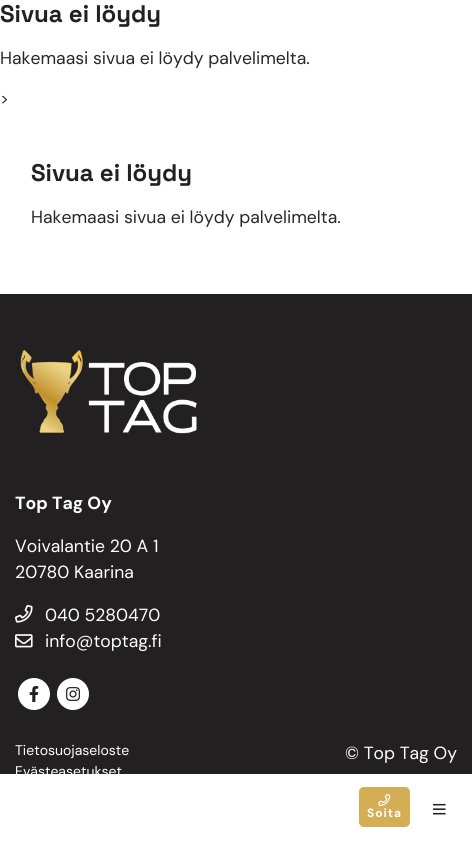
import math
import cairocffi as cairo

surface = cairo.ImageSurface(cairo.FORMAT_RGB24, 472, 844)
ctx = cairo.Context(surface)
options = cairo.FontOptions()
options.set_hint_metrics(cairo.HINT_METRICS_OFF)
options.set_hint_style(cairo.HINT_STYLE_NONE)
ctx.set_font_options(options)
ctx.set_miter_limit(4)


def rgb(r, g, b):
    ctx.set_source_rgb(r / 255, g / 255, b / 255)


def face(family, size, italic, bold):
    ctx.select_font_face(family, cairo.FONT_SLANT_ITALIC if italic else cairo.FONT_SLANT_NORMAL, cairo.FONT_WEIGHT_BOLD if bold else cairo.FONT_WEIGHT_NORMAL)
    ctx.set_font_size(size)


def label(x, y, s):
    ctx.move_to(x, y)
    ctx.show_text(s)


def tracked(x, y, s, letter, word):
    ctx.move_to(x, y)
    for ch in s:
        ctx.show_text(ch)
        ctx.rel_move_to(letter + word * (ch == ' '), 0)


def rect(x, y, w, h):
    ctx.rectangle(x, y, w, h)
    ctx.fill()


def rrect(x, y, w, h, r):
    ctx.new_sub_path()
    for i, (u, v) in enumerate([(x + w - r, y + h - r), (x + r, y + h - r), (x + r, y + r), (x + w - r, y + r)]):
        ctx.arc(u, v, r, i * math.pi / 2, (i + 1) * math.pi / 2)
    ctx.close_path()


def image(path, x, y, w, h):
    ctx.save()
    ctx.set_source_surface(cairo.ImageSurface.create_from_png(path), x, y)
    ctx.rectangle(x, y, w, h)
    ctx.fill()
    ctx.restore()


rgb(255, 255, 255)
ctx.paint()
face('Space Grotesk', 24, 0, 1)
rgb(35, 32, 33)
label(0, 22, 'Sivua ei löydy')
face('DM Sans', 17.6, 0, 0)
rgb(39, 39, 39)
label(0, 64, 'Hakemaasi sivua ei löydy palvelimelta.')
face('DM Sans', 16, 0, 0)
label(0, 104, '>')
face('Space Grotesk', 24, 0, 1)
rgb(35, 32, 33)
label(31, 181, 'Sivua ei löydy')
face('DM Sans', 17.6, 0, 0)
rgb(39, 39, 39)
label(31, 223, 'Hakemaasi sivua ei löydy palvelimelta.')
rgb(35, 32, 33)
rect(0, 294, 472, 480)
image('image0.png', 20, 350, 177, 84)
face('DM Sans', 17.6, 0, 1)
rgb(255, 255, 255)
label(15, 509, 'Top Tag Oy')
face('DM Sans', 17.6, 0, 0)
label(15, 552, 'Voivalantie 20 A 1')
label(15, 578, '20780 Kaarina')
image('image1.png', 15, 605, 18, 18)
label(45, 621, '040 5280470')
image('image2.png', 15, 634, 18, 14)
label(45, 647, 'info@toptag.fi')
ctx.new_path()
ctx.arc(34, 694, 16, 0, 2 * math.pi)
ctx.fill()
image('image3.png', 29, 686, 10, 16)
ctx.arc(73, 694, 16, 0, 2 * math.pi)
ctx.fill()
image('image4.png', 66, 687, 14, 14)
face('DM Sans', 14, 0, 0)
label(15, 755, 'Tietosuojaseloste')
label(15, 776, 'Evästeasetukset')
face('DM Sans', 17.6, 0, 0)
label(345, 759, '© Top Tag Oy')
rgb(211, 174, 85)
rrect(359, 787, 51, 40, 5)
ctx.fill()
image('image5.png', 378, 794, 13, 12)
face('DM Sans', 12, 0, 1)
rgb(255, 255, 255)
tracked(367, 817, 'Soita', 1, 0)
image('image6.png', 433, 803, 13, 12)
surface.write_to_png('render.png')
